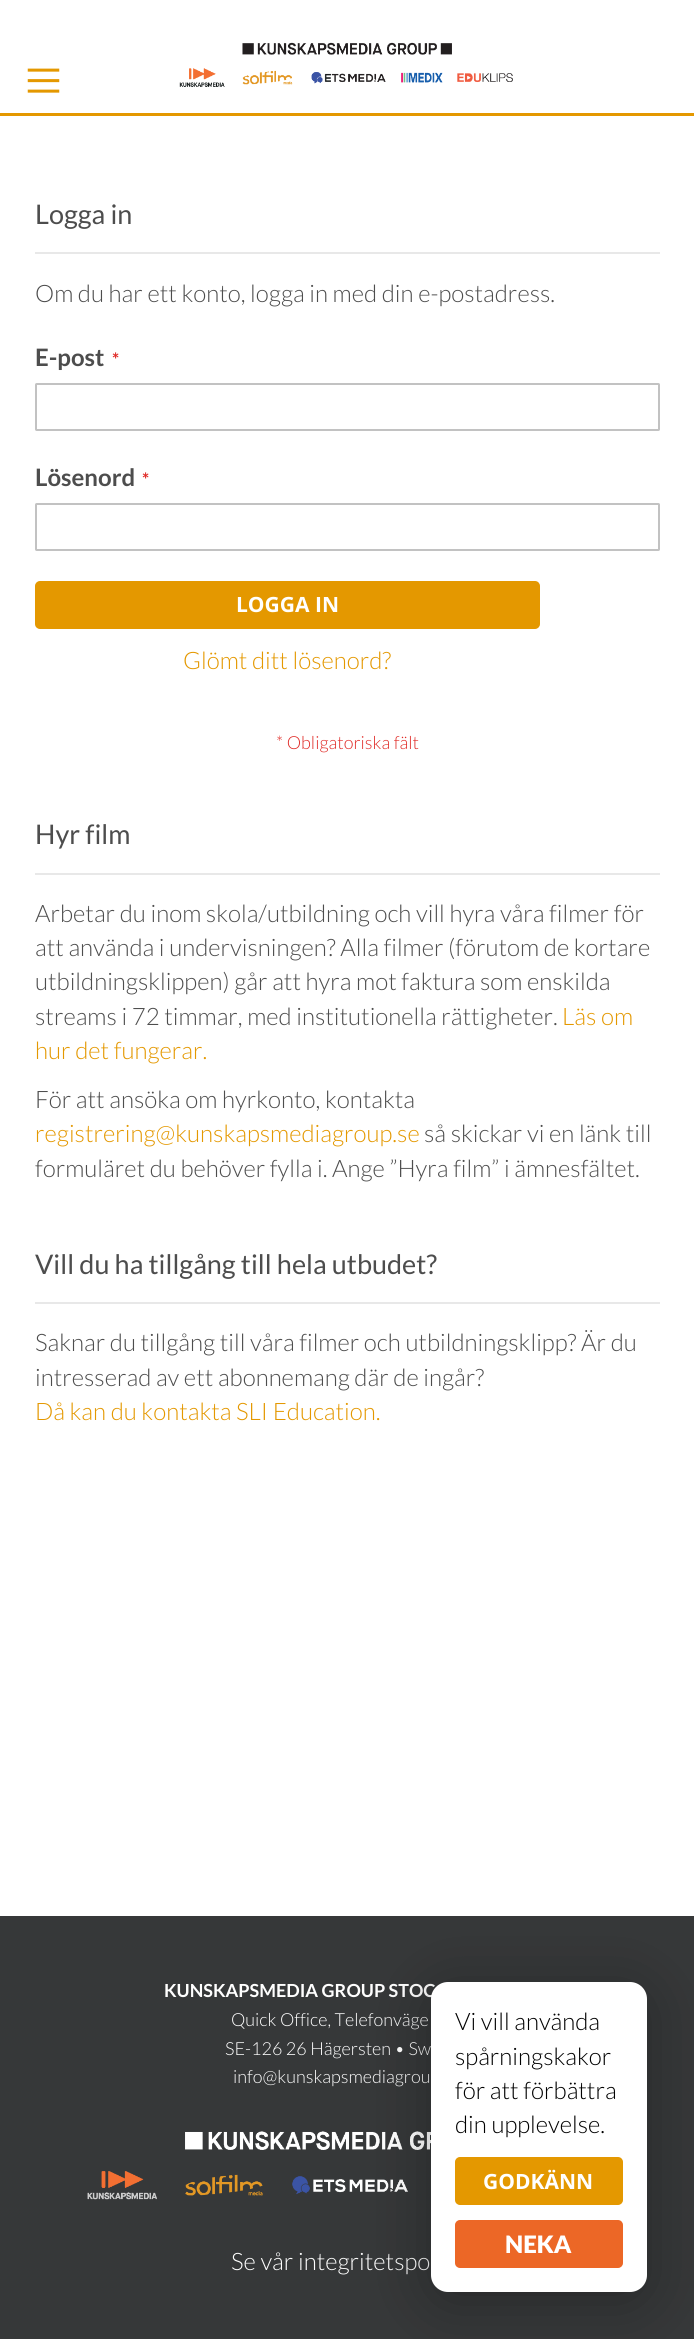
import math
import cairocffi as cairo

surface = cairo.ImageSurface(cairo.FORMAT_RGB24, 694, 2339)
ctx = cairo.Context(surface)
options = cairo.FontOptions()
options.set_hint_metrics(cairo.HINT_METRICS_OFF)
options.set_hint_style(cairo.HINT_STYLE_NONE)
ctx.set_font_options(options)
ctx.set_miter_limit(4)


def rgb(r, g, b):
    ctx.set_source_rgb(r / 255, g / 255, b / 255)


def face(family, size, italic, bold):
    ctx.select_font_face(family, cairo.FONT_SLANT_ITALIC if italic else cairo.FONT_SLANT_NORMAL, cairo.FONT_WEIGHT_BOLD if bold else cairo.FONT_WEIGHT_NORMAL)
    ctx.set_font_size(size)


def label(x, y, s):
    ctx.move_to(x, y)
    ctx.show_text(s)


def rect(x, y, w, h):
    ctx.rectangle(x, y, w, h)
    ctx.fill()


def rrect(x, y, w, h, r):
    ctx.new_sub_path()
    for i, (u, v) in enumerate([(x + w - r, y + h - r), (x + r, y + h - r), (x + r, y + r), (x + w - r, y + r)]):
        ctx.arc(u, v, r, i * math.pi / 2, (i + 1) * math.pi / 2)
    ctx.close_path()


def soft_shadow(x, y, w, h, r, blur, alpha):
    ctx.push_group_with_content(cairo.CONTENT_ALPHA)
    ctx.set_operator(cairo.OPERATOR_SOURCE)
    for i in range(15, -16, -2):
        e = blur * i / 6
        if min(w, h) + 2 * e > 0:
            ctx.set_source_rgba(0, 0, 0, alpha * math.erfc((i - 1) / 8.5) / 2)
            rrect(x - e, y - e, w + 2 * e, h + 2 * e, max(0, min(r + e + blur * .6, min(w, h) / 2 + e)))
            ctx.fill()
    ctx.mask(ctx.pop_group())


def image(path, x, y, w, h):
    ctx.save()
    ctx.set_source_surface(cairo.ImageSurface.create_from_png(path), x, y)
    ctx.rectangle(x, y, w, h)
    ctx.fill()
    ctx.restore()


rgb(255, 255, 255)
ctx.paint()
rgb(228, 152, 0)
rect(0, 113, 694, 3)
image('image0.png', 27, 68, 33, 25)
image('image1.png', 179, 42, 334, 45)
rgb(232, 232, 232)
rect(35, 252, 625, 2)
face('Lato', 27, 0, 0)
rgb(77, 77, 77)
label(35, 224, 'Logga in')
face('Lato Light', 24, 0, 0)
label(35, 302, 'Om du har ett konto, logga in med din e-postadress.')
face('Lato', 24, 0, 1)
label(35, 366, 'E-post')
face('Lato', 18, 0, 1)
rgb(224, 43, 39)
label(112, 366, '*')
rrect(36, 384, 623, 46, 0.5)
rgb(194, 194, 194)
ctx.stroke()
face('Lato', 24, 0, 1)
rgb(77, 77, 77)
label(35, 486, 'Lösenord')
face('Lato', 18, 0, 1)
rgb(224, 43, 39)
label(142, 486, '*')
rrect(36, 504, 623, 46, 0.5)
rgb(194, 194, 194)
ctx.stroke()
rgb(228, 152, 0)
rrect(36, 582, 503, 46, 4)
ctx.fill_preserve()
ctx.stroke()
face('Open Sans', 21, 0, 1)
rgb(255, 255, 255)
label(236, 612, 'LOGGA IN')
face('Lato Light', 24, 0, 0)
rgb(228, 152, 0)
label(183, 669, 'Glömt ditt lösenord?')
face('Lato Light', 18, 0, 0)
rgb(224, 43, 39)
label(276, 749, '* Obligatoriska fält')
rgb(232, 232, 232)
rect(35, 873, 625, 2)
face('Lato', 27, 0, 0)
rgb(77, 77, 77)
label(35, 844, 'Hyr film')
face('Lato Light', 24, 0, 0)
label(35, 922, 'Arbetar du inom skola/utbildning och vill hyra våra filmer för')
label(35, 956, 'att använda i undervisningen? Alla filmer (förutom de kortare')
label(35, 990, 'utbildningsklippen) går att hyra mot faktura som enskilda')
label(35, 1025, 'streams i 72 timmar, med institutionella rättigheter.')
rgb(228, 152, 0)
label(562, 1025, 'Läs om')
label(35, 1059, 'hur det fungerar.')
rgb(77, 77, 77)
label(35, 1108, 'För att ansöka om hyrkonto, kontakta')
rgb(228, 152, 0)
label(35, 1142, 'registrering@kunskapsmediagroup.se')
rgb(77, 77, 77)
label(424, 1142, 'så skickar vi en länk till')
label(35, 1177, 'formuläret du behöver fylla i. Ange ”Hyra film” i ämnesfältet.')
rgb(232, 232, 232)
rect(35, 1302, 625, 2)
face('Lato', 27, 0, 0)
rgb(77, 77, 77)
label(35, 1274, 'Vill du ha tillgång till hela utbudet?')
face('Lato Light', 24, 0, 0)
label(35, 1351, 'Saknar du tillgång till våra filmer och utbildningsklipp? Är du')
label(35, 1386, 'intresserad av ett abonnemang där de ingår?')
rgb(228, 152, 0)
label(35, 1420, 'Då kan du kontakta SLI Education.')
rgb(54, 56, 57)
rect(0, 1916, 694, 423)
face('Lato', 18, 0, 1)
rgb(255, 255, 255)
label(164, 1997, 'KUNSKAPSMEDIA GROUP STOC')
face('Lato Light', 18, 0, 0)
label(231, 2026, 'Quick Office, Telefonväge')
label(225, 2055, 'SE-126 26 Hägersten • Sw')
label(233, 2083, 'info@kunskapsmediagrou')
image('image2.png', 87, 2131, 344, 69)
face('Lato Light', 24, 0, 0)
label(231, 2270, 'Se vår integritetspo')
rgb(0, 0, 0)
soft_shadow(431, 1991, 216, 310, 17, 30, 0.3)
rgb(255, 255, 255)
rrect(431, 1982, 216, 310, 17)
ctx.fill()
rgb(0, 0, 0)
label(455, 2030, 'Vi vill använda')
label(455, 2065, 'spårningskakor')
label(455, 2099, 'för att förbättra')
label(455, 2133, 'din upplevelse.')
rgb(228, 152, 0)
rrect(456, 2158, 166, 46, 4)
ctx.fill_preserve()
ctx.stroke()
face('Open Sans', 21, 0, 1)
rgb(255, 255, 255)
label(483, 2189, 'GODKÄNN')
rgb(236, 103, 38)
rrect(456, 2221, 166, 46, 4)
ctx.fill_preserve()
ctx.stroke()
face('Lato Black', 24, 0, 0)
rgb(255, 255, 255)
label(505, 2253, 'NEKA')
surface.write_to_png('render.png')
